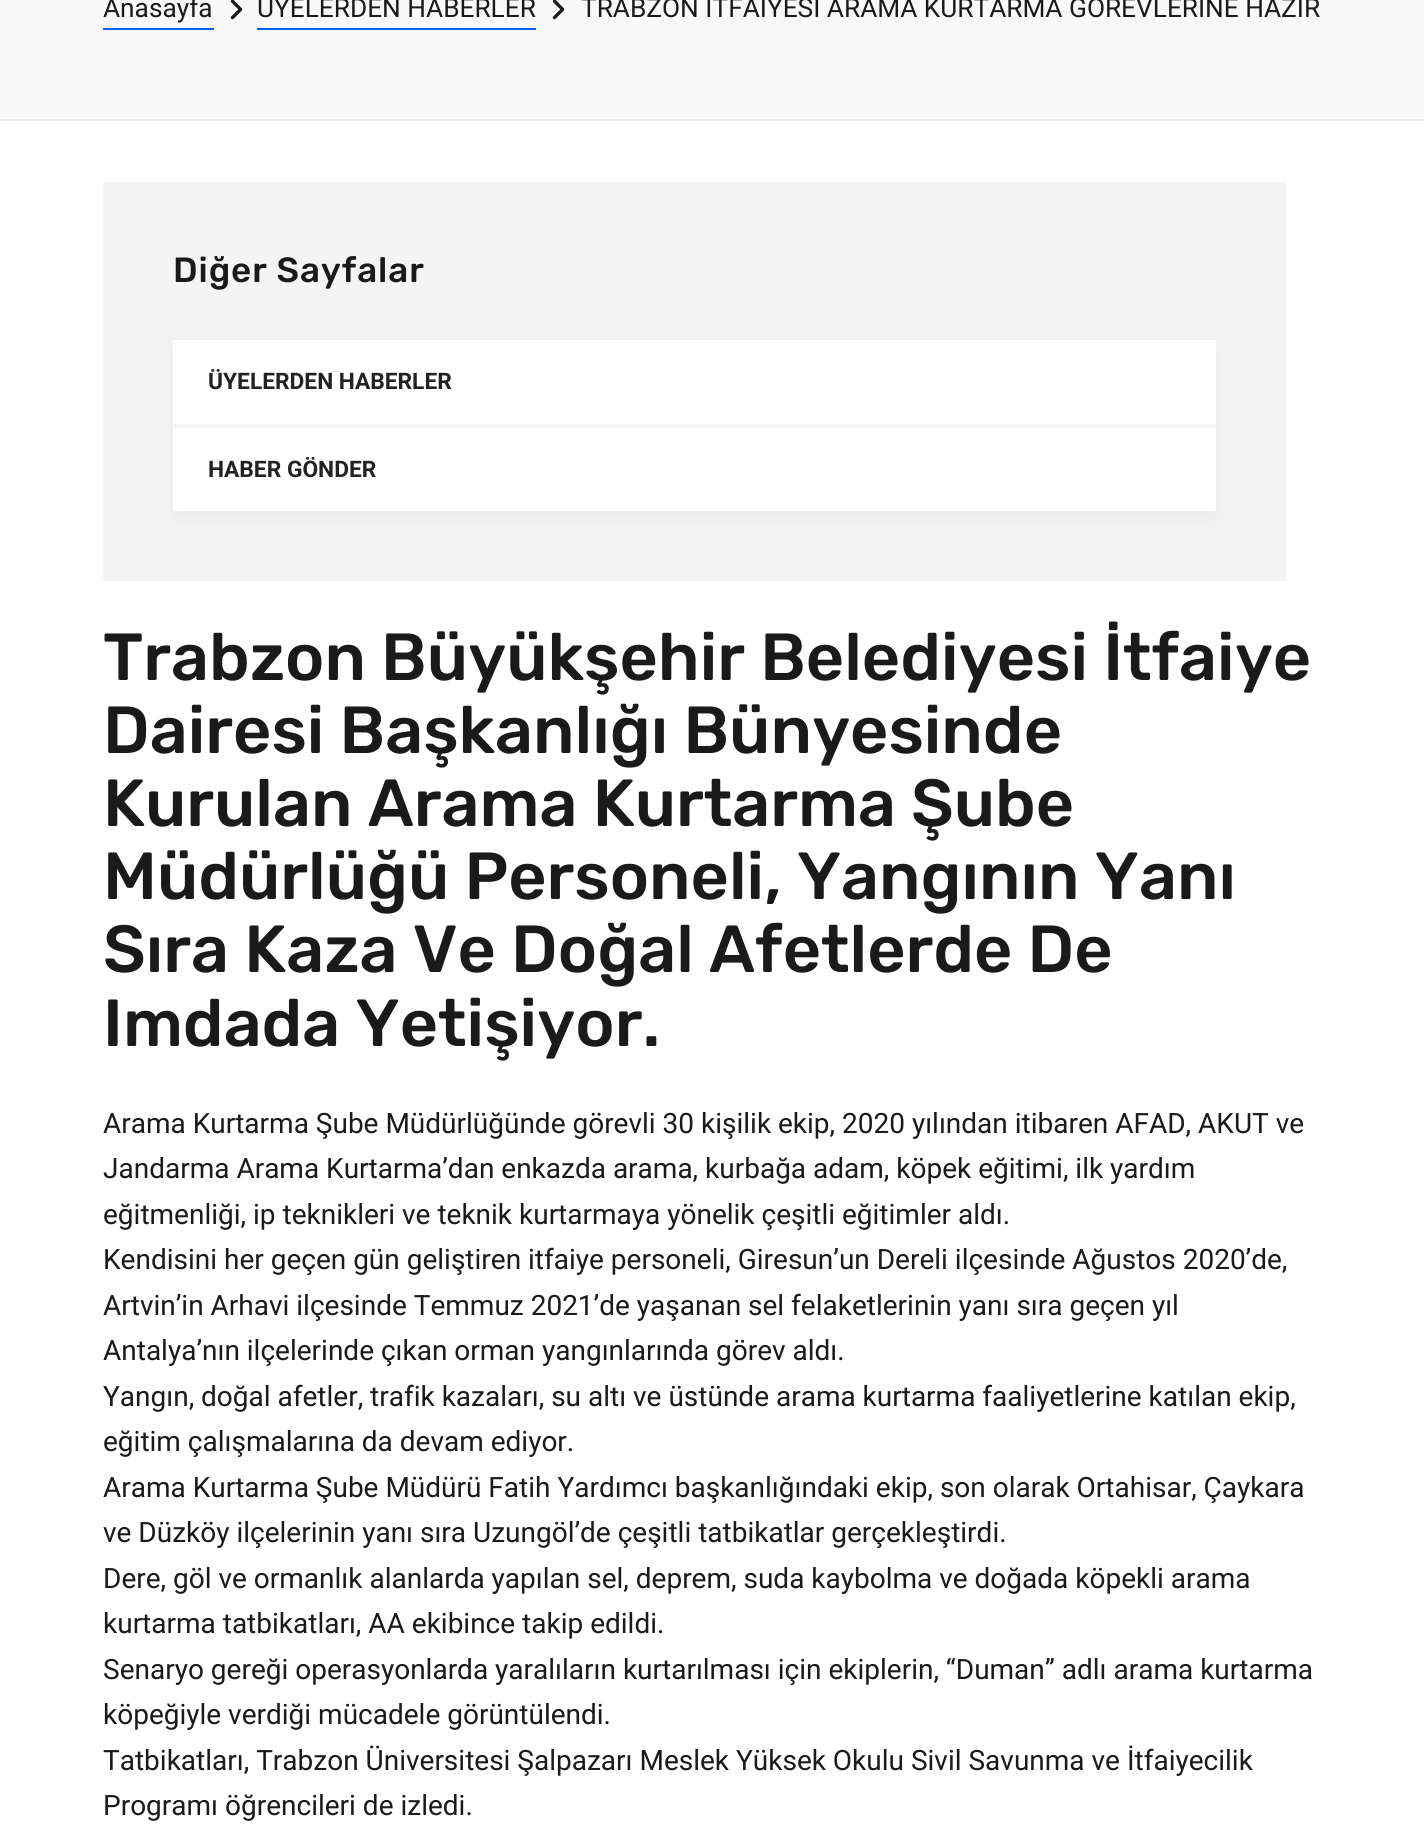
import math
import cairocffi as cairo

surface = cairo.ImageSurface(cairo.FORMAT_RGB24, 1424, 1828)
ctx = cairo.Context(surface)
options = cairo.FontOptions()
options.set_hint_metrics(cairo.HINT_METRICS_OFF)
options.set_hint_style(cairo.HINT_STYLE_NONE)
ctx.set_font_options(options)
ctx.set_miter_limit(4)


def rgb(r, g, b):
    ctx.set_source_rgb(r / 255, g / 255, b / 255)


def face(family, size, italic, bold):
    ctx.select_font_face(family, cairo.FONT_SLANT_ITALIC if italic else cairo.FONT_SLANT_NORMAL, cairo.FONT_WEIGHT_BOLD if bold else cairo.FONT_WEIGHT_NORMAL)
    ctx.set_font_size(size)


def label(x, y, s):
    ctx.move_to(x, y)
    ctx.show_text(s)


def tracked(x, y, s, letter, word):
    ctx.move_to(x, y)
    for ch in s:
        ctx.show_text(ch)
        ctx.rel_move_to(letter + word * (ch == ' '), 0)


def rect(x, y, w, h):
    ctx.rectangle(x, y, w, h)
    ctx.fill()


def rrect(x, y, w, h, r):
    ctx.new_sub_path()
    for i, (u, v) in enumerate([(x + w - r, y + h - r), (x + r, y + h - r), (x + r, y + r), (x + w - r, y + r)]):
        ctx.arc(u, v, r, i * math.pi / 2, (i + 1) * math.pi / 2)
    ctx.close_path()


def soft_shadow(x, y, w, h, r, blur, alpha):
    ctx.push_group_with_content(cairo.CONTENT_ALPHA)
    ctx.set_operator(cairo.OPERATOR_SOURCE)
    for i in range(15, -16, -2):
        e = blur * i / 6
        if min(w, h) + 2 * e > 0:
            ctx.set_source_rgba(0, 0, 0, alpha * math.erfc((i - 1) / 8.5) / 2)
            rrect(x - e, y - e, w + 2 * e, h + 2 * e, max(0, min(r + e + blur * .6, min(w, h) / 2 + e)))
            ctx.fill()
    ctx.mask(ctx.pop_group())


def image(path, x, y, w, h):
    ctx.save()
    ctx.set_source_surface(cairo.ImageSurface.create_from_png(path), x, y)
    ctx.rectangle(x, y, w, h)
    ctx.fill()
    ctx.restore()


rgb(255, 255, 255)
ctx.paint()
rgb(249, 249, 249)
rect(0, 0, 1424, 119)
rgb(234, 234, 234)
rect(0, 119, 1424, 2)
face('Roboto', 26.25, 0, 0)
rgb(26, 26, 26)
label(103, 17, 'Anasayfa')
rgb(0, 96, 253)
rect(103, 28, 111, 2)
image('image0.png', 230, 0, 13, 20)
rgb(26, 26, 26)
label(257, 17, 'ÜYELERDEN HABERLER')
rgb(0, 96, 253)
rect(257, 28, 279, 2)
image('image0.png', 552, 0, 13, 20)
rgb(26, 26, 26)
label(581, 17, 'TRABZON İTFAİYESİ ARAMA KURTARMA GÖREVLERİNE HAZIR')
rgb(244, 244, 244)
rect(103, 182, 1183, 399)
face('Rubik Medium', 35, 0, 0)
rgb(26, 26, 26)
tracked(173, 282, 'Diğer Sayfalar', 0.9, 0)
rgb(40, 40, 40)
soft_shadow(173, 348, 1043, 172, 0, 17.5, 0.05)
rgb(255, 255, 255)
rect(173, 340, 1043, 171)
rgb(244, 244, 244)
rect(173, 424, 1043, 4)
face('Roboto', 22.75, 0, 1)
rgb(34, 34, 34)
label(208, 389, 'ÜYELERDEN HABERLER')
label(208, 477, 'HABER GÖNDER')
face('Rubik Medium', 66.5, 0, 0)
rgb(26, 26, 26)
label(103, 680, 'Trabzon Büyükşehir Belediyesi İtfaiye')
label(103, 753, 'Dairesi Başkanlığı Bünyesinde')
label(103, 826, 'Kurulan Arama Kurtarma Şube')
label(103, 899, 'Müdürlüğü Personeli, Yangının Yanı')
label(103, 972, 'Sıra Kaza Ve Doğal Afetlerde De')
label(103, 1046, 'Imdada Yetişiyor.')
face('Roboto', 28, 0, 0)
label(103, 1133, 'Arama Kurtarma Şube Müdürlüğünde görevli 30 kişilik ekip, 2020 yılından itibaren AFAD, AKUT ve')
label(103, 1178, 'Jandarma Arama Kurtarma’dan enkazda arama, kurbağa adam, köpek eğitimi, ilk yardım')
label(103, 1224, 'eğitmenliği, ip teknikleri ve teknik kurtarmaya yönelik çeşitli eğitimler aldı.')
label(103, 1269, 'Kendisini her geçen gün geliştiren itfaiye personeli, Giresun’un Dereli ilçesinde Ağustos 2020’de,')
label(103, 1315, 'Artvin’in Arhavi ilçesinde Temmuz 2021’de yaşanan sel felaketlerinin yanı sıra geçen yıl')
label(103, 1360, 'Antalya’nın ilçelerinde çıkan orman yangınlarında görev aldı.')
label(103, 1406, 'Yangın, doğal afetler, trafik kazaları, su altı ve üstünde arama kurtarma faaliyetlerine katılan ekip,')
label(103, 1451, 'eğitim çalışmalarına da devam ediyor.')
label(103, 1497, 'Arama Kurtarma Şube Müdürü Fatih Yardımcı başkanlığındaki ekip, son olarak Ortahisar, Çaykara')
label(103, 1542, 've Düzköy ilçelerinin yanı sıra Uzungöl’de çeşitli tatbikatlar gerçekleştirdi.')
label(103, 1588, 'Dere, göl ve ormanlık alanlarda yapılan sel, deprem, suda kaybolma ve doğada köpekli arama')
label(103, 1633, 'kurtarma tatbikatları, AA ekibince takip edildi.')
label(103, 1679, 'Senaryo gereği operasyonlarda yaralıların kurtarılması için ekiplerin, “Duman” adlı arama kurtarma')
label(103, 1724, 'köpeğiyle verdiği mücadele görüntülendi.')
label(103, 1770, 'Tatbikatları, Trabzon Üniversitesi Şalpazarı Meslek Yüksek Okulu Sivil Savunma ve İtfaiyecilik')
label(103, 1815, 'Programı öğrencileri de izledi.')
surface.write_to_png('render.png')
